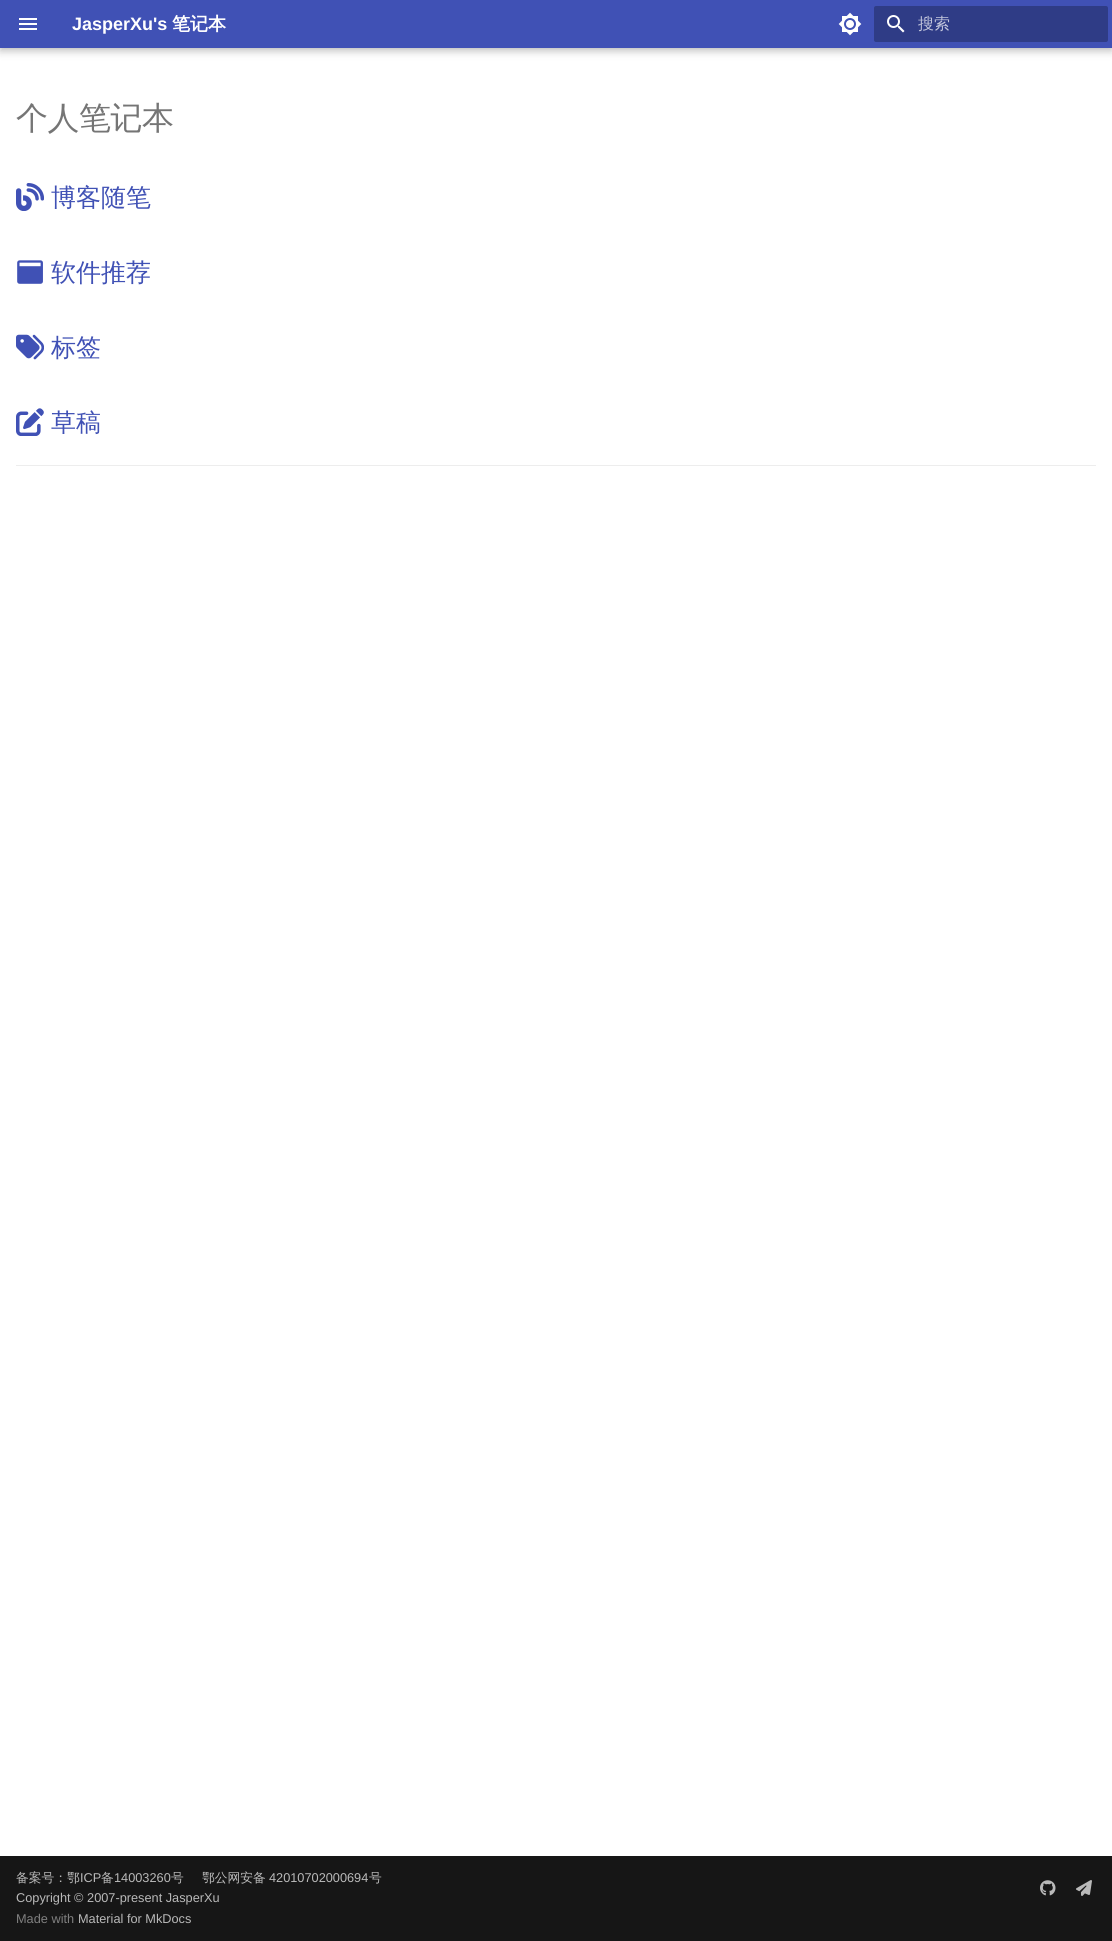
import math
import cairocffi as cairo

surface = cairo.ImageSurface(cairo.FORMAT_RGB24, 1112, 1941)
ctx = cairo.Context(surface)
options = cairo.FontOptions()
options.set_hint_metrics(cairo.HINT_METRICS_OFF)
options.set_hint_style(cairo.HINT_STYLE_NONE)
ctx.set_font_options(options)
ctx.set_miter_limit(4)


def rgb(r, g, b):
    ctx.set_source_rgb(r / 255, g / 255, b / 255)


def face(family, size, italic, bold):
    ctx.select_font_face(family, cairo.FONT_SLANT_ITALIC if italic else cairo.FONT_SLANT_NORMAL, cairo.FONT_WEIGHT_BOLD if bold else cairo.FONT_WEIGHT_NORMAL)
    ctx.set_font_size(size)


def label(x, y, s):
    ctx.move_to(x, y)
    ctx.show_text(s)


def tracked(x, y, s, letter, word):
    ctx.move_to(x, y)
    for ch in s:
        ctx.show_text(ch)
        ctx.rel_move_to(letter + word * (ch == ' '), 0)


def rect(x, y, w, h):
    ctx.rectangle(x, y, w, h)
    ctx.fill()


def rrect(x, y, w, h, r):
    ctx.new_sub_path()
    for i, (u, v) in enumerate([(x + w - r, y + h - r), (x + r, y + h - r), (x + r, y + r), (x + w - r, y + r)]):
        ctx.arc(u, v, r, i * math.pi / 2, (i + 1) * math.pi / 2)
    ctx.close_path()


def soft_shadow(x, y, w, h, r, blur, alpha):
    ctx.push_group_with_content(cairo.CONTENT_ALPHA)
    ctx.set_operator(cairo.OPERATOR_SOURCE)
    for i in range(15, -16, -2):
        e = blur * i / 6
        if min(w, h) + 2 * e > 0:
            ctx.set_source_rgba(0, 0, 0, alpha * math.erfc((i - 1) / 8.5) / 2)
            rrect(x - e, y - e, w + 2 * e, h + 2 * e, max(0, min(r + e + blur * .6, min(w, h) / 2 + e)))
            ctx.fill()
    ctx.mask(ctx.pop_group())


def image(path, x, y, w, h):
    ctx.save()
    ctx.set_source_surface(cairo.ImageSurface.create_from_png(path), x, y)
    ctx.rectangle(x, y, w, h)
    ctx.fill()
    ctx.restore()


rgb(255, 255, 255)
ctx.paint()
rgb(0, 0, 0)
soft_shadow(0, 4, 1112, 48, 0, 4, 0.2)
soft_shadow(0, 0, 1112, 48, 0, 2, 0.1)
rgb(64, 81, 181)
rect(0, 0, 1112, 48)
image('image0.png', 19, 18, 18, 12)
face('Liberation Sans', 18, 0, 1)
rgb(255, 255, 255)
label(72, 30, 'JasperXu\'s')
face('WenQuanYi Zen Hei', 18, 0, 1)
label(172, 30, '笔记本')
image('image1.png', 838, 12, 24, 24)
rgb(47, 60, 134)
rrect(874, 6, 234, 36, 2)
ctx.fill()
image('image2.png', 887, 15, 18, 18)
face('WenQuanYi Zen Hei Medium', 16, 0, 0)
rgb(193, 197, 219)
label(918, 29, '搜索')
face('WenQuanYi Zen Hei Medium', 32, 0, 0)
rgb(117, 117, 117)
tracked(16, 129, '个人笔记本', -0.5, 0)
image('image3.png', 16, 183, 28, 28)
face('WenQuanYi Zen Hei Medium', 25, 0, 0)
rgb(64, 81, 181)
label(51, 206, '博客随笔')
image('image4.png', 17, 260, 26, 24)
label(51, 281, '软件推荐')
image('image5.png', 16, 334, 28, 26)
label(51, 356, '标签')
image('image6.png', 16, 408, 28, 28)
label(51, 431, '草稿')
rgb(237, 237, 237)
rect(16, 465, 1080, 1)
rgb(22, 22, 22)
rect(0, 1856, 1112, 85)
face('WenQuanYi Zen Hei Medium', 12.75, 0, 0)
rgb(185, 185, 185)
label(16, 1882, '备案号：鄂')
face('Liberation Sans', 12.75, 0, 0)
label(80, 1882, 'ICP')
face('WenQuanYi Zen Hei Medium', 12.75, 0, 0)
label(101, 1882, '备')
face('Liberation Sans', 12.75, 0, 0)
label(114, 1882, '14003260')
face('WenQuanYi Zen Hei Medium', 12.75, 0, 0)
label(171, 1882, '号')
label(202, 1882, '鄂公网安备')
face('Liberation Sans', 12.75, 0, 0)
label(269, 1882, '42010702000694')
face('WenQuanYi Zen Hei Medium', 12.75, 0, 0)
label(369, 1882, '号')
face('Liberation Sans', 12.75, 0, 0)
label(16, 1902, 'Copyright © 2007-present JasperXu')
rgb(127, 127, 127)
label(16, 1923, 'Made with')
rgb(185, 185, 185)
label(78, 1923, 'Material for MkDocs')
image('image7.png', 1040, 1880, 16, 16)
image('image8.png', 1076, 1880, 16, 16)
surface.write_to_png('render.png')
